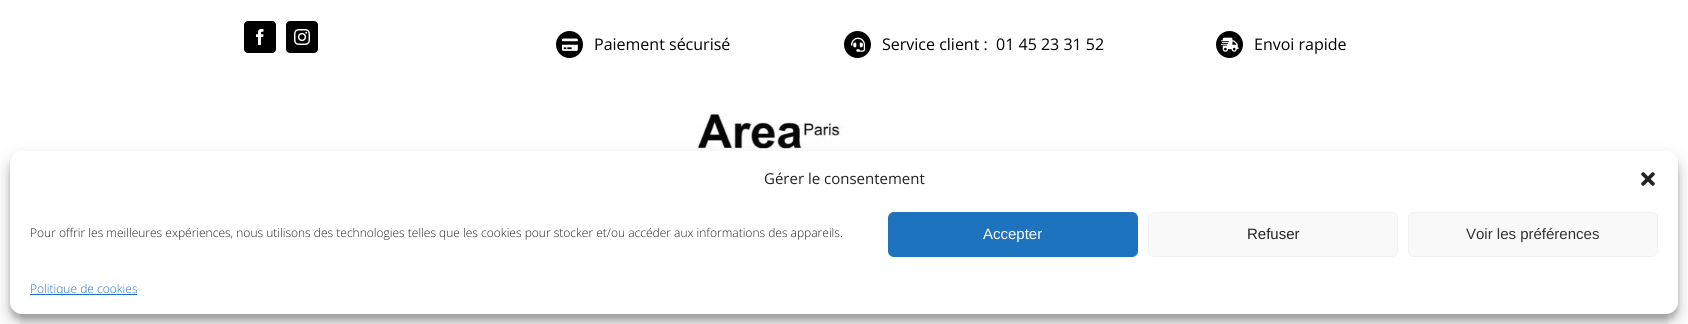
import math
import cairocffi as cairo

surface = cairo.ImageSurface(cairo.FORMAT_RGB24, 1688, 324)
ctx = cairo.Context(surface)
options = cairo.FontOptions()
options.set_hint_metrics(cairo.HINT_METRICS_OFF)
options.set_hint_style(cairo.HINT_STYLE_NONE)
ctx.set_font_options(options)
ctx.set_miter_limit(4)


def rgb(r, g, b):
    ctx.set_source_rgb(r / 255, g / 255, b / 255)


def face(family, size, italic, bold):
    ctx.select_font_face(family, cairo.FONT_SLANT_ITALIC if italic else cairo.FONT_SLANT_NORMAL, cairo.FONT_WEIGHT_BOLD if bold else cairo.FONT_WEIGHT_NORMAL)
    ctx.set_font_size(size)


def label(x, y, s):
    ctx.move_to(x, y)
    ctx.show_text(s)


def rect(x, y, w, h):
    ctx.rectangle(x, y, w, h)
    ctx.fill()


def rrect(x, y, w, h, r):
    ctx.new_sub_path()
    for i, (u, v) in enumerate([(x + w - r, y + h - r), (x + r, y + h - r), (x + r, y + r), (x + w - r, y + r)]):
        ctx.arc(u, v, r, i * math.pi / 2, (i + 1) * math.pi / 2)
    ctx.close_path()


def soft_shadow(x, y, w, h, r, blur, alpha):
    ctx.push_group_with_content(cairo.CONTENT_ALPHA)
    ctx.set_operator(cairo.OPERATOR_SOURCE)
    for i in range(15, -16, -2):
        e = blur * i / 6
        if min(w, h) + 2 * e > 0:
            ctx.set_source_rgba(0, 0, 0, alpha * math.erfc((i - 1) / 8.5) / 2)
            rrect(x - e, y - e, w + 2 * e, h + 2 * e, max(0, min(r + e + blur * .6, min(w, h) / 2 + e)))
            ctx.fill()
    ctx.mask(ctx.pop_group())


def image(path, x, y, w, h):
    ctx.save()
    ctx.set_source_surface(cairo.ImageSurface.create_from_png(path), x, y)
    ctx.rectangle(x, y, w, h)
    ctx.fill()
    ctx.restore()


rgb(255, 255, 255)
ctx.paint()
rgb(0, 0, 0)
rrect(244, 21, 32, 32, 4)
ctx.fill()
image('image0.png', 256, 29, 8, 16)
rrect(286, 21, 32, 32, 4)
ctx.fill()
image('image1.png', 294, 29, 16, 16)
ctx.arc(569.5, 44.5, 13.5, 0, 2 * math.pi)
ctx.fill()
image('image2.png', 562, 38, 16, 13)
face('Open Sans', 16, 0, 0)
label(594, 50, 'Paiement sécurisé')
ctx.new_path()
ctx.arc(857.5, 44.5, 13.5, 0, 2 * math.pi)
ctx.fill()
image('image3.png', 851, 37, 15, 15)
label(882, 50, 'Service client :  01 45 23 31 52')
ctx.new_path()
ctx.arc(1229.5, 44.5, 13.5, 0, 2 * math.pi)
ctx.fill()
image('image4.png', 1221, 37, 18, 15)
label(1254, 50, 'Envoi rapide')
image('image5.png', 697, 113, 291, 38)
rgb(248, 248, 248)
rect(20, 313, 1648, 11)
rgb(0, 0, 0)
soft_shadow(10, 157, 1668, 163, 12, 3, 0.23)
soft_shadow(10, 161, 1668, 163, 12, 10, 0.19)
rgb(255, 255, 255)
rrect(10, 151, 1668, 163, 12)
ctx.fill()
face('Open Sans', 15, 0, 0)
rgb(34, 34, 34)
label(764, 184, 'Gérer le consentement')
image('image6.png', 1641, 172, 14, 14)
face('Open Sans Light', 12, 0, 0)
label(30, 237, 'Pour offrir les meilleures expériences, nous utilisons des technologies telles que les cookies pour stocker et/ou accéder aux informations des appareils.')
rgb(30, 115, 190)
rrect(888.5, 212.5, 249, 44, 5.5)
ctx.fill_preserve()
ctx.set_line_width(1)
ctx.stroke()
face('Liberation Sans', 15, 0, 0)
rgb(255, 255, 255)
label(983, 239, 'Accepter')
rgb(249, 249, 249)
rrect(1148.5, 212.5, 249, 44, 5.5)
ctx.fill_preserve()
rgb(242, 242, 242)
ctx.stroke()
rgb(34, 34, 34)
label(1247, 239, 'Refuser')
rgb(249, 249, 249)
rrect(1408.5, 212.5, 249, 44, 5.5)
ctx.fill_preserve()
rgb(242, 242, 242)
ctx.stroke()
rgb(51, 51, 51)
label(1466, 239, 'Voir les préférences')
rgb(30, 115, 190)
rect(30, 294, 107, 1)
face('Open Sans Light', 12, 0, 0)
label(30, 293, 'Politique de cookies')
surface.write_to_png('render.png')
